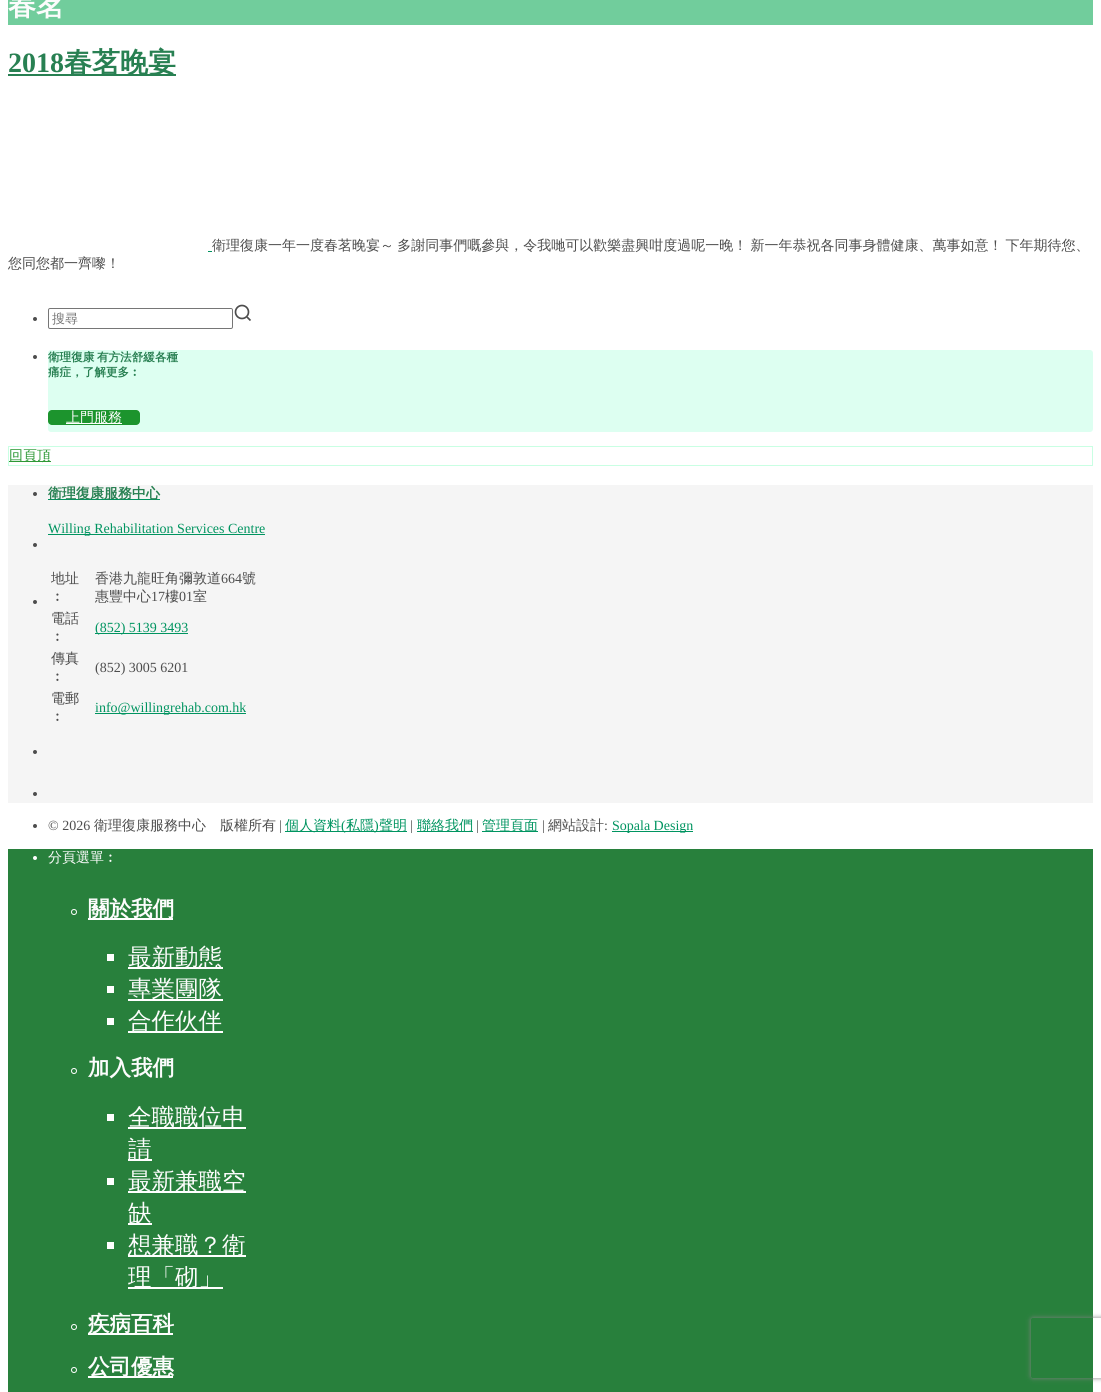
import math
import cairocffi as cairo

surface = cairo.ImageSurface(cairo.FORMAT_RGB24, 1101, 1392)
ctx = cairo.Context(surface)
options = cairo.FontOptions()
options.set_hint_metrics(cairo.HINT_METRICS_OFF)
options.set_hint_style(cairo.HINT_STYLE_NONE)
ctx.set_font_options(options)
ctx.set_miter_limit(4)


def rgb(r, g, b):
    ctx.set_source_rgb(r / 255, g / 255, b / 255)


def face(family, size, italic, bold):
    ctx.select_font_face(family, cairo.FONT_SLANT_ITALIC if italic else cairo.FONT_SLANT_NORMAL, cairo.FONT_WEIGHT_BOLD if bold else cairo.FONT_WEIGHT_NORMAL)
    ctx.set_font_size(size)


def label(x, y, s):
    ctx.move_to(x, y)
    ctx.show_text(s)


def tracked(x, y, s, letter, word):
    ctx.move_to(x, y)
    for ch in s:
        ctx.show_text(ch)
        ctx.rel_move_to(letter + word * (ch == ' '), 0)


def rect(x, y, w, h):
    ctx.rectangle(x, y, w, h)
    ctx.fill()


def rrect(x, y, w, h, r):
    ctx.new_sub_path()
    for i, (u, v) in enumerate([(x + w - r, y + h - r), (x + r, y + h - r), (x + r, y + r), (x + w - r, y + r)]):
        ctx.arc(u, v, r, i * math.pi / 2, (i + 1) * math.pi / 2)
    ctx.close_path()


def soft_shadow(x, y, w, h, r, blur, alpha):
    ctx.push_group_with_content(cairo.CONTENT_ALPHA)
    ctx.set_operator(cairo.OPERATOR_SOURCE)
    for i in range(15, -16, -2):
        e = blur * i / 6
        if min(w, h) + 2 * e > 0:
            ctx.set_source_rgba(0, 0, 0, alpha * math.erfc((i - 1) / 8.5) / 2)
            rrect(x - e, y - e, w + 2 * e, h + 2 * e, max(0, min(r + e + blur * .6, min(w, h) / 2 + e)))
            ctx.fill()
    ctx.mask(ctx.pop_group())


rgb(255, 255, 255)
ctx.paint()
rgb(113, 205, 156)
rect(8, 0, 1085, 25)
face('WenQuanYi Zen Hei', 28, 0, 1)
rgb(252, 252, 252)
label(8, 15, '春茗')
face('Liberation Serif', 28, 0, 1)
rgb(40, 128, 82)
label(8, 72, '2018')
rect(8, 74, 168, 2)
face('WenQuanYi Zen Hei', 28, 0, 1)
label(64, 72, '春茗晚宴')
rgb(0, 148, 96)
rect(208, 251, 4, 1)
face('WenQuanYi Zen Hei Medium', 14, 0, 0)
rgb(77, 77, 77)
tracked(212, 250, '衛理復康一年一度春茗晚宴～ 多謝同事們嘅參與，令我哋可以歡樂盡興咁度過呢一晚！ 新一年恭祝各同事身體健康、萬事如意！ 下年期待您、', 0, -1)
label(8, 268, '您同您都一齊嚟！')
ctx.new_path()
ctx.arc(35, 319, 2, 0, 2 * math.pi)
ctx.fill()
rrect(48.5, 308.5, 184, 20, 1.5)
rgb(118, 118, 118)
ctx.set_line_width(1)
ctx.stroke()
face('WenQuanYi Zen Hei Medium', 13, 0, 0)
rgb(117, 117, 117)
label(52, 323, '搜尋')
ctx.new_path()
ctx.arc(242, 312, 6.5, 0, 2 * math.pi)
rgb(77, 77, 77)
ctx.set_line_width(1.7)
ctx.stroke()
ctx.new_path()
ctx.move_to(250.5, 320.5)
ctx.line_to(247, 317)
ctx.stroke()
ctx.arc(35, 357, 2, 0, 2 * math.pi)
ctx.fill()
rgb(221, 255, 241)
rrect(48, 350, 1045, 82, 3)
ctx.fill()
face('WenQuanYi Zen Hei', 11.6, 0, 1)
rgb(40, 128, 82)
tracked(48, 361, '衛理復康 有方法舒緩各種', 0, -1)
label(48, 376, '痛症，了解更多︰')
rgb(28, 148, 45)
rrect(48, 410, 92, 15, 4)
ctx.fill()
rgb(255, 255, 255)
rect(66, 423, 56, 1)
face('WenQuanYi Zen Hei Medium', 14, 0, 0)
rgb(252, 252, 252)
label(66, 422, '上門服務')
ctx.rectangle(8.5, 446.5, 1084, 19)
rgb(201, 255, 227)
ctx.set_line_width(1)
ctx.stroke()
rgb(45, 152, 53)
rect(9, 461, 42, 1)
label(9, 460, '回頁頂')
rgb(245, 245, 245)
rect(8, 485, 1085, 318)
rgb(77, 77, 77)
ctx.new_path()
ctx.arc(35, 494, 2, 0, 2 * math.pi)
ctx.fill()
rgb(0, 148, 96)
rect(48, 499, 112, 1)
face('WenQuanYi Zen Hei', 14, 0, 1)
rgb(40, 128, 82)
label(48, 498, '衛理復康服務中心')
rgb(0, 148, 96)
rect(48, 534, 217, 1)
face('Liberation Serif', 14, 0, 0)
label(48, 533, 'Willing Rehabilitation Services Centre')
rgb(77, 77, 77)
ctx.new_path()
ctx.arc(35, 545, 2, 0, 2 * math.pi)
ctx.fill()
ctx.arc(35, 602, 2, 0, 2 * math.pi)
ctx.fill()
face('WenQuanYi Zen Hei Medium', 14, 0, 0)
label(51, 583, '地址')
label(51, 601, '︰')
label(95, 583, '香港九龍旺角彌敦道')
face('Liberation Serif', 14, 0, 0)
label(221, 583, '664')
face('WenQuanYi Zen Hei Medium', 14, 0, 0)
label(242, 583, '號')
label(95, 601, '惠豐中心')
face('Liberation Serif', 14, 0, 0)
label(151, 601, '17')
face('WenQuanYi Zen Hei Medium', 14, 0, 0)
label(165, 601, '樓')
face('Liberation Serif', 14, 0, 0)
label(179, 601, '01')
face('WenQuanYi Zen Hei Medium', 14, 0, 0)
label(193, 601, '室')
label(51, 623, '電話')
label(51, 641, '︰')
rgb(0, 148, 96)
rect(95, 633, 93, 1)
face('Liberation Serif', 14, 0, 0)
label(95, 632, '(852) 5139 3493')
face('WenQuanYi Zen Hei Medium', 14, 0, 0)
rgb(77, 77, 77)
label(51, 663, '傳真')
label(51, 681, '︰')
face('Liberation Serif', 14, 0, 0)
label(95, 672, '(852) 3005 6201')
face('WenQuanYi Zen Hei Medium', 14, 0, 0)
label(51, 703, '電郵')
label(51, 721, '︰')
rgb(0, 148, 96)
rect(95, 713, 151, 1)
face('Liberation Serif', 14, 0, 0)
label(95, 712, 'info@willingrehab.com.hk')
rgb(77, 77, 77)
ctx.new_path()
ctx.arc(35, 752, 2, 0, 2 * math.pi)
ctx.fill()
ctx.arc(35, 794, 2, 0, 2 * math.pi)
ctx.fill()
ctx.arc(35, 826, 2, 0, 2 * math.pi)
ctx.fill()
label(48, 830, '© 2026')
face('WenQuanYi Zen Hei Medium', 14, 0, 0)
label(94, 830, '衛理復康服務中心　版權所有')
face('Liberation Serif', 14, 0, 0)
label(279, 830, '|')
rgb(0, 148, 96)
rect(285, 831, 122, 1)
face('WenQuanYi Zen Hei Medium', 14, 0, 0)
label(285, 830, '個人資料')
face('Liberation Serif', 14, 0, 0)
label(341, 830, '(')
face('WenQuanYi Zen Hei Medium', 14, 0, 0)
label(346, 830, '私隱')
face('Liberation Serif', 14, 0, 0)
label(374, 830, ')')
face('WenQuanYi Zen Hei Medium', 14, 0, 0)
label(379, 830, '聲明')
face('Liberation Serif', 14, 0, 0)
rgb(77, 77, 77)
label(410, 830, '|')
rgb(0, 148, 96)
rect(417, 831, 56, 1)
face('WenQuanYi Zen Hei Medium', 14, 0, 0)
label(417, 830, '聯絡我們')
face('Liberation Serif', 14, 0, 0)
rgb(77, 77, 77)
label(476, 830, '|')
rgb(0, 148, 96)
rect(482, 831, 56, 1)
face('WenQuanYi Zen Hei Medium', 14, 0, 0)
label(482, 830, '管理頁面')
face('Liberation Serif', 14, 0, 0)
rgb(77, 77, 77)
label(542, 830, '|')
face('WenQuanYi Zen Hei Medium', 14, 0, 0)
label(548, 830, '網站設計')
face('Liberation Serif', 14, 0, 0)
label(604, 830, ':')
rgb(0, 148, 96)
rect(612, 831, 81, 1)
label(612, 830, 'Sopala Design')
rgb(40, 128, 60)
rect(8, 849, 1085, 543)
rgb(255, 255, 255)
ctx.new_path()
ctx.arc(35, 858, 2, 0, 2 * math.pi)
ctx.fill()
face('WenQuanYi Zen Hei Medium', 14, 0, 0)
rgb(252, 252, 252)
label(48, 862, '分頁選單︰')
ctx.new_path()
ctx.arc(74, 912, 2.5, 0, 2 * math.pi)
rgb(255, 255, 255)
ctx.stroke()
rect(88, 918, 85, 2)
face('WenQuanYi Zen Hei', 21.5, 0, 1)
rgb(252, 252, 252)
label(88, 916, '關於我們')
rgb(255, 255, 255)
rect(107, 954, 7, 7)
rect(128, 967, 95, 2)
face('WenQuanYi Zen Hei Medium', 23.5, 0, 0)
rgb(252, 252, 252)
label(128, 965, '最新動態')
rgb(255, 255, 255)
rect(107, 986, 7, 7)
rect(128, 999, 95, 2)
rgb(252, 252, 252)
label(128, 997, '專業團隊')
rgb(255, 255, 255)
rect(107, 1018, 7, 7)
rect(128, 1031, 95, 2)
rgb(252, 252, 252)
label(128, 1029, '合作伙伴')
ctx.new_path()
ctx.arc(74, 1071, 2.5, 0, 2 * math.pi)
rgb(255, 255, 255)
ctx.stroke()
face('WenQuanYi Zen Hei', 21.5, 0, 1)
rgb(252, 252, 252)
label(88, 1075, '加入我們')
rgb(255, 255, 255)
rect(107, 1114, 7, 7)
rect(128, 1127, 118, 2)
face('WenQuanYi Zen Hei Medium', 23.5, 0, 0)
rgb(252, 252, 252)
label(128, 1125, '全職職位申')
rgb(255, 255, 255)
rect(128, 1159, 24, 2)
rgb(252, 252, 252)
label(128, 1157, '請')
rgb(255, 255, 255)
rect(107, 1178, 7, 7)
rect(128, 1191, 118, 2)
rgb(252, 252, 252)
label(128, 1189, '最新兼職空')
rgb(255, 255, 255)
rect(128, 1223, 24, 2)
rgb(252, 252, 252)
label(128, 1221, '缺')
rgb(255, 255, 255)
rect(107, 1242, 7, 7)
rect(128, 1255, 118, 2)
rgb(252, 252, 252)
label(128, 1253, '想兼職？衛')
rgb(255, 255, 255)
rect(128, 1287, 95, 2)
rgb(252, 252, 252)
label(128, 1285, '理「砌」')
ctx.new_path()
ctx.arc(74, 1327, 2.5, 0, 2 * math.pi)
rgb(255, 255, 255)
ctx.stroke()
rect(88, 1333, 85, 2)
face('WenQuanYi Zen Hei', 21.5, 0, 1)
rgb(252, 252, 252)
label(88, 1331, '疾病百科')
ctx.new_path()
ctx.arc(74, 1370, 2.5, 0, 2 * math.pi)
rgb(255, 255, 255)
ctx.stroke()
rect(88, 1376, 85, 2)
rgb(252, 252, 252)
label(88, 1374, '公司優惠')
ctx.save()
ctx.set_fill_rule(cairo.FILL_RULE_EVEN_ODD)
ctx.new_path()
ctx.move_to(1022, 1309)
ctx.line_to(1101, 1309)
ctx.line_to(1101, 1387)
ctx.line_to(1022, 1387)
ctx.close_path()
ctx.move_to(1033, 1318)
ctx.line_to(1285, 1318)
ctx.curve_to(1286, 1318, 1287, 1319, 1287, 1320)
ctx.line_to(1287, 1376)
ctx.curve_to(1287, 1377, 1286, 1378, 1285, 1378)
ctx.line_to(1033, 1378)
ctx.curve_to(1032, 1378, 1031, 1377, 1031, 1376)
ctx.line_to(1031, 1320)
ctx.curve_to(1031, 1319, 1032, 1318, 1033, 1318)
ctx.close_path()
ctx.clip()
rgb(128, 128, 128)
soft_shadow(1031, 1318, 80, 60, 2, 2.5, 1)
ctx.restore()
surface.write_to_png('render.png')
